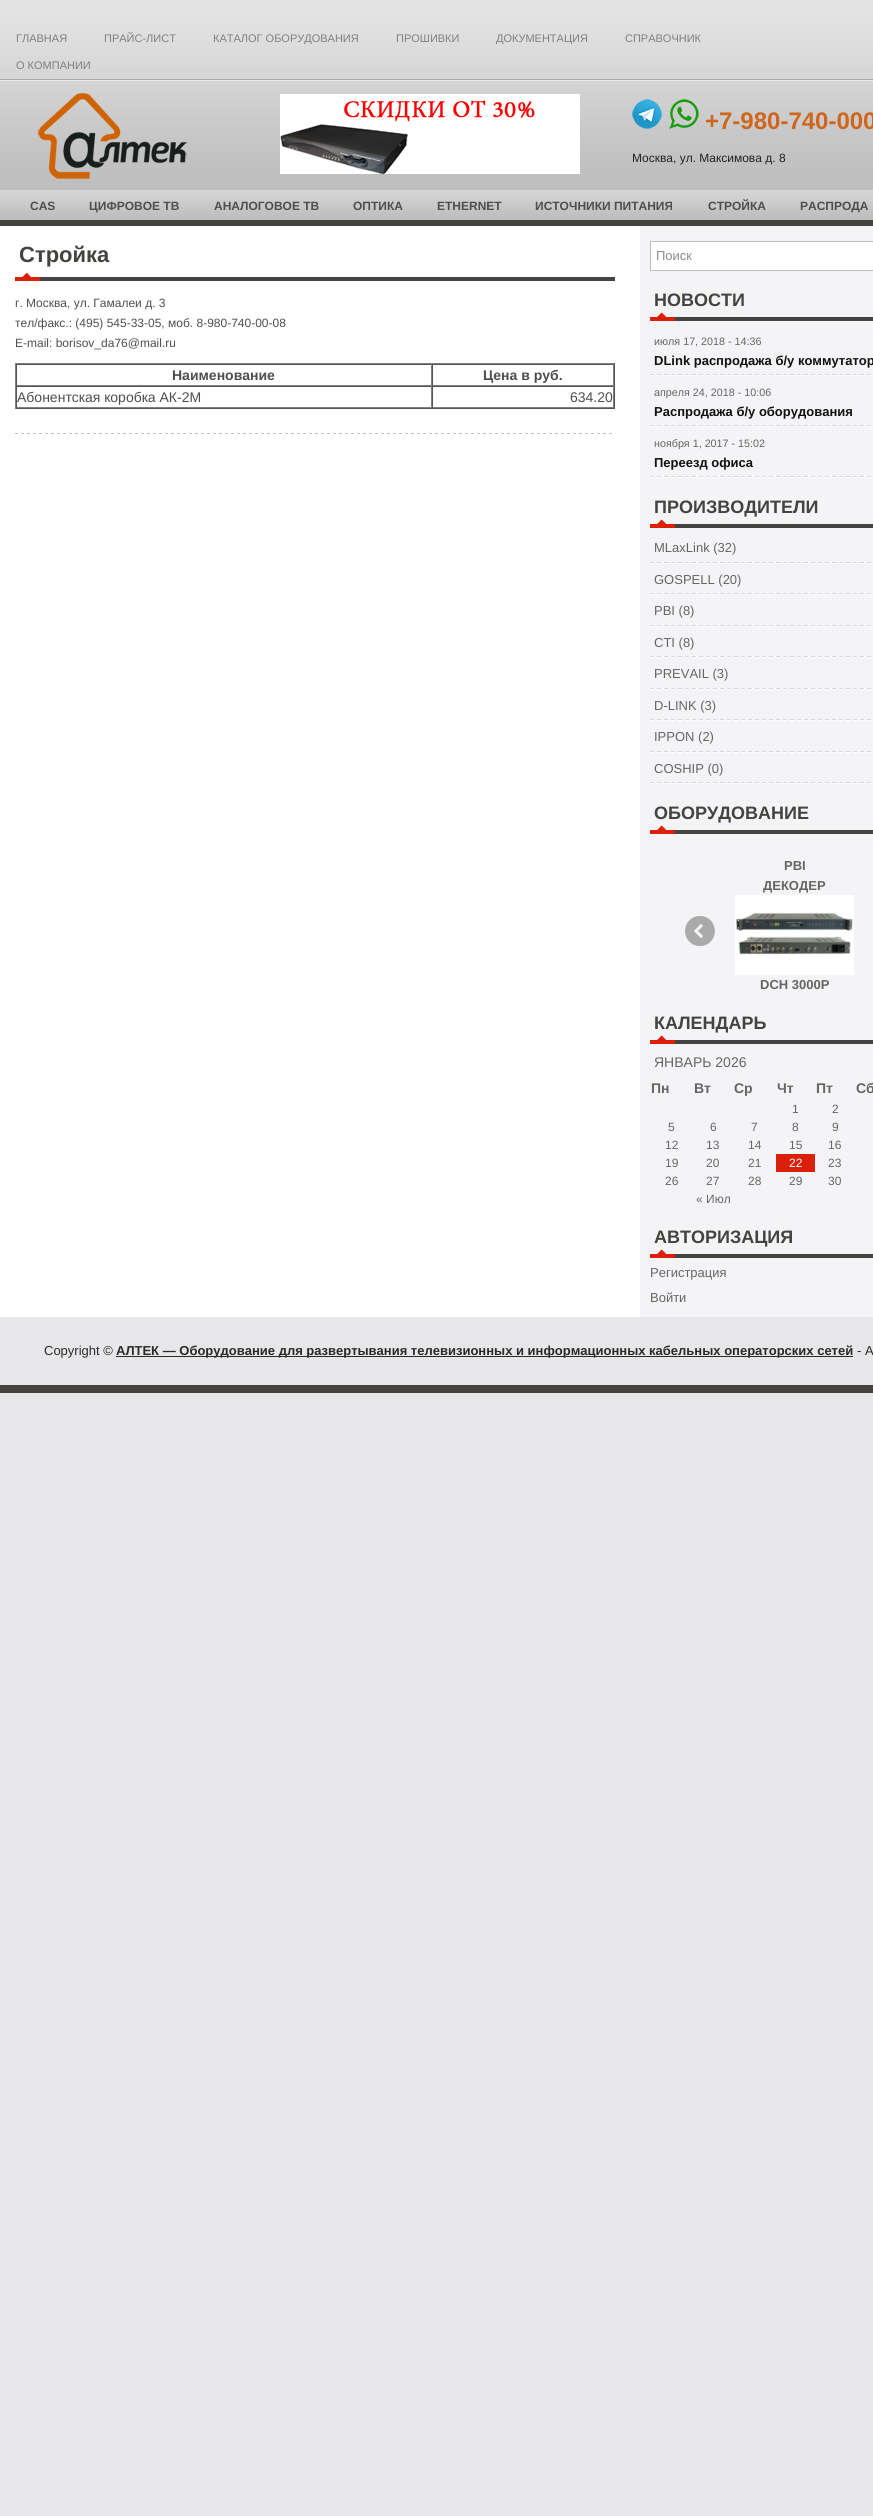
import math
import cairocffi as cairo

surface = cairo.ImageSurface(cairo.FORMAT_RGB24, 873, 2516)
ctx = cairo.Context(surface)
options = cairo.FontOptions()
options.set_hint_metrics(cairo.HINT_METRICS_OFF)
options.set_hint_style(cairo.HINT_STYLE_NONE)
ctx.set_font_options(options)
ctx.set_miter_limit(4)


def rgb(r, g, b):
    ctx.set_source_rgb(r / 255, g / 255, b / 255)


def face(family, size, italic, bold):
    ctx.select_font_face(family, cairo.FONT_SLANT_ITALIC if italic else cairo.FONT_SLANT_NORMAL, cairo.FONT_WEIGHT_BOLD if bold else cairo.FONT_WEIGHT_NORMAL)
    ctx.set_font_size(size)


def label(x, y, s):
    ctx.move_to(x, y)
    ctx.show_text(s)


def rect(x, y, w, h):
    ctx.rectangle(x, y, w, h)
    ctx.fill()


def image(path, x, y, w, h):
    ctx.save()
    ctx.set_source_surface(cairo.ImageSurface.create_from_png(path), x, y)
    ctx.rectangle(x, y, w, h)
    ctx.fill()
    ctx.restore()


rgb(231, 231, 233)
ctx.paint()
image('image0.png', 0, 0, 873, 190)
face('Liberation Sans', 11, 0, 0)
rgb(128, 128, 128)
label(16, 42, 'ГЛАВНАЯ')
label(104, 42, 'ПРАЙС-ЛИСТ')
label(213, 42, 'КАТАЛОГ ОБОРУДОВАНИЯ')
label(396, 42, 'ПРОШИВКИ')
label(496, 42, 'ДОКУМЕНТАЦИЯ')
label(625, 42, 'СПРАВОЧНИК')
label(16, 69, 'О КОМПАНИИ')
image('image1.png', 0, 79, 873, 2)
image('image2.png', 38, 93, 149, 86)
image('image3.png', 280, 94, 300, 80)
image('image4.png', 632, 99, 30, 30)
image('image5.png', 669, 99, 30, 30)
face('Liberation Sans', 24, 0, 1)
rgb(206, 102, 29)
label(705, 129, '+7-980-740-000')
face('Liberation Sans', 12, 0, 0)
rgb(34, 34, 34)
label(632, 162, 'Москва, ул. Максимова д. 8')
image('image6.png', 0, 190, 873, 36)
face('Liberation Sans', 12, 0, 1)
rgb(80, 77, 77)
label(30, 210, 'CAS')
label(89, 210, 'ЦИФРОВОЕ ТВ')
label(214, 210, 'АНАЛОГОВОЕ ТВ')
label(353, 210, 'ОПТИКА')
label(437, 210, 'ETHERNET')
label(535, 210, 'ИСТОЧНИКИ ПИТАНИЯ')
label(708, 210, 'СТРОЙКА')
label(800, 210, 'РАСПРОДА')
rgb(255, 255, 255)
rect(0, 226, 640, 1091)
rgb(244, 244, 247)
rect(640, 226, 233, 1091)
image('image7.png', 15, 433, 597, 1)
image('image8.png', 15, 272, 600, 9)
face('Liberation Sans', 22, 0, 1)
rgb(68, 67, 63)
label(19, 262, 'Стройка')
face('Liberation Sans', 12, 0, 0)
rgb(80, 77, 77)
label(15, 307, 'г. Москва, ул. Гамалеи д. 3')
label(15, 327, 'тел/факс.: (495) 545-33-05, моб. 8-980-740-00-08')
label(15, 347, 'E-mail: borisov_da76@mail.ru')
rgb(128, 128, 128)
rect(15, 363, 600, 1)
rgb(85, 85, 85)
rect(614, 363, 1, 46)
rect(15, 408, 600, 1)
rgb(128, 128, 128)
rect(15, 363, 1, 46)
rgb(85, 85, 85)
rect(16, 364, 598, 1)
rgb(128, 128, 128)
rect(431, 364, 1, 22)
rect(16, 385, 416, 1)
rgb(85, 85, 85)
rect(16, 364, 1, 22)
face('Liberation Sans', 14, 0, 1)
rgb(80, 77, 77)
label(172, 380, 'Наименование')
rgb(128, 128, 128)
rect(613, 364, 1, 22)
rect(432, 385, 182, 1)
rgb(85, 85, 85)
rect(432, 364, 1, 22)
rgb(80, 77, 77)
label(483, 380, 'Цена в руб.')
rgb(85, 85, 85)
rect(16, 386, 598, 1)
rgb(128, 128, 128)
rect(431, 386, 1, 22)
rect(16, 407, 416, 1)
rgb(85, 85, 85)
rect(16, 386, 1, 22)
face('Liberation Sans', 14, 0, 0)
rgb(80, 77, 77)
label(17, 402, 'Абонентская коробка АК-2М')
rgb(128, 128, 128)
rect(613, 386, 1, 22)
rect(432, 407, 182, 1)
rgb(85, 85, 85)
rect(432, 386, 1, 22)
rgb(80, 77, 77)
label(570, 402, '634.20')
rgb(255, 255, 255)
ctx.rectangle(650.5, 241.5, 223, 29)
ctx.fill_preserve()
rgb(190, 190, 188)
ctx.set_line_width(1)
ctx.stroke()
face('Liberation Sans', 13, 0, 0)
rgb(140, 140, 140)
label(656, 260, 'Поиск')
image('image9.png', 650, 312, 223, 9)
face('Liberation Sans', 18, 0, 1)
rgb(68, 67, 63)
label(654, 306, 'НОВОСТИ')
image('image10.png', 650, 374, 221, 2)
face('Liberation Sans', 10.75, 0, 0)
rgb(101, 101, 101)
label(654, 345, 'июля 17, 2018 - 14:36')
face('Liberation Sans', 13, 0, 1)
rgb(17, 17, 17)
label(654, 365, 'DLink распродажа б/у коммутатор')
image('image10.png', 650, 425, 221, 2)
face('Liberation Sans', 10.75, 0, 0)
rgb(101, 101, 101)
label(654, 396, 'апреля 24, 2018 - 10:06')
face('Liberation Sans', 13, 0, 1)
rgb(17, 17, 17)
label(654, 416, 'Распродажа б/у оборудования')
image('image10.png', 650, 476, 221, 2)
face('Liberation Sans', 10.75, 0, 0)
rgb(101, 101, 101)
label(654, 447, 'ноября 1, 2017 - 15:02')
face('Liberation Sans', 13, 0, 1)
rgb(17, 17, 17)
label(654, 467, 'Переезд офиса')
image('image9.png', 650, 519, 223, 9)
face('Liberation Sans', 18, 0, 1)
rgb(68, 67, 63)
label(654, 513, 'ПРОИЗВОДИТЕЛИ')
image('image10.png', 650, 562, 221, 2)
face('Liberation Sans', 13, 0, 0)
rgb(101, 101, 101)
label(654, 552, 'MLaxLink (32)')
image('image10.png', 650, 593, 221, 2)
label(654, 584, 'GOSPELL (20)')
image('image10.png', 650, 625, 221, 2)
label(654, 615, 'PBI (8)')
image('image10.png', 650, 656, 221, 2)
label(654, 647, 'CTI (8)')
image('image10.png', 650, 688, 221, 2)
label(654, 678, 'PREVAIL (3)')
image('image10.png', 650, 719, 221, 2)
label(654, 710, 'D-LINK (3)')
image('image10.png', 650, 751, 221, 2)
label(654, 741, 'IPPON (2)')
image('image10.png', 650, 782, 221, 2)
label(654, 773, 'COSHIP (0)')
image('image9.png', 650, 825, 223, 9)
face('Liberation Sans', 18, 0, 1)
rgb(68, 67, 63)
label(654, 819, 'ОБОРУДОВАНИЕ')
image('image11.png', 685, 916, 30, 30)
face('Liberation Sans', 13, 0, 1)
rgb(101, 101, 101)
label(784, 870, 'PBI')
label(763, 890, 'ДЕКОДЕР')
image('image12.png', 735, 895, 119, 80)
label(760, 989, 'DCH 3000P')
image('image9.png', 650, 1035, 223, 9)
face('Liberation Sans', 18, 0, 1)
rgb(68, 67, 63)
label(654, 1029, 'КАЛЕНДАРЬ')
face('Liberation Sans', 14, 0, 0)
rgb(101, 101, 101)
label(654, 1067, 'ЯНВАРЬ 2026')
face('Liberation Sans', 14, 0, 1)
label(651, 1093, 'Пн')
label(694, 1093, 'Вт')
label(734, 1093, 'Ср')
label(777, 1093, 'Чт')
label(816, 1093, 'Пт')
label(856, 1093, 'Сб')
face('Liberation Sans', 12, 0, 0)
label(792, 1113, '1')
label(832, 1113, '2')
label(668, 1131, '5')
label(710, 1131, '6')
label(751, 1131, '7')
label(792, 1131, '8')
label(832, 1131, '9')
label(665, 1149, '12')
label(706, 1149, '13')
label(748, 1149, '14')
label(789, 1149, '15')
label(828, 1149, '16')
label(665, 1167, '19')
label(706, 1167, '20')
label(748, 1167, '21')
rgb(218, 32, 8)
rect(776, 1154, 39, 18)
rgb(255, 255, 255)
label(789, 1167, '22')
rgb(101, 101, 101)
label(828, 1167, '23')
label(665, 1185, '26')
label(706, 1185, '27')
label(748, 1185, '28')
label(789, 1185, '29')
label(828, 1185, '30')
label(696, 1203, '« Июл')
image('image9.png', 650, 1249, 223, 9)
face('Liberation Sans', 18, 0, 1)
rgb(68, 67, 63)
label(654, 1243, 'АВТОРИЗАЦИЯ')
face('Liberation Sans', 13, 0, 0)
rgb(101, 101, 101)
label(650, 1277, 'Регистрация')
label(650, 1302, 'Войти')
rgb(68, 67, 63)
rect(0, 1385, 873, 8)
rgb(42, 42, 42)
label(44, 1355, 'Copyright ©')
rect(116, 1356, 737, 1)
face('Liberation Sans', 13, 0, 1)
label(116, 1355, 'АЛТЕК — Оборудование для развертывания телевизионных и информационных кабельных операторских сетей')
face('Liberation Sans', 13, 0, 0)
label(857, 1355, '- А')
surface.write_to_png('render.png')
